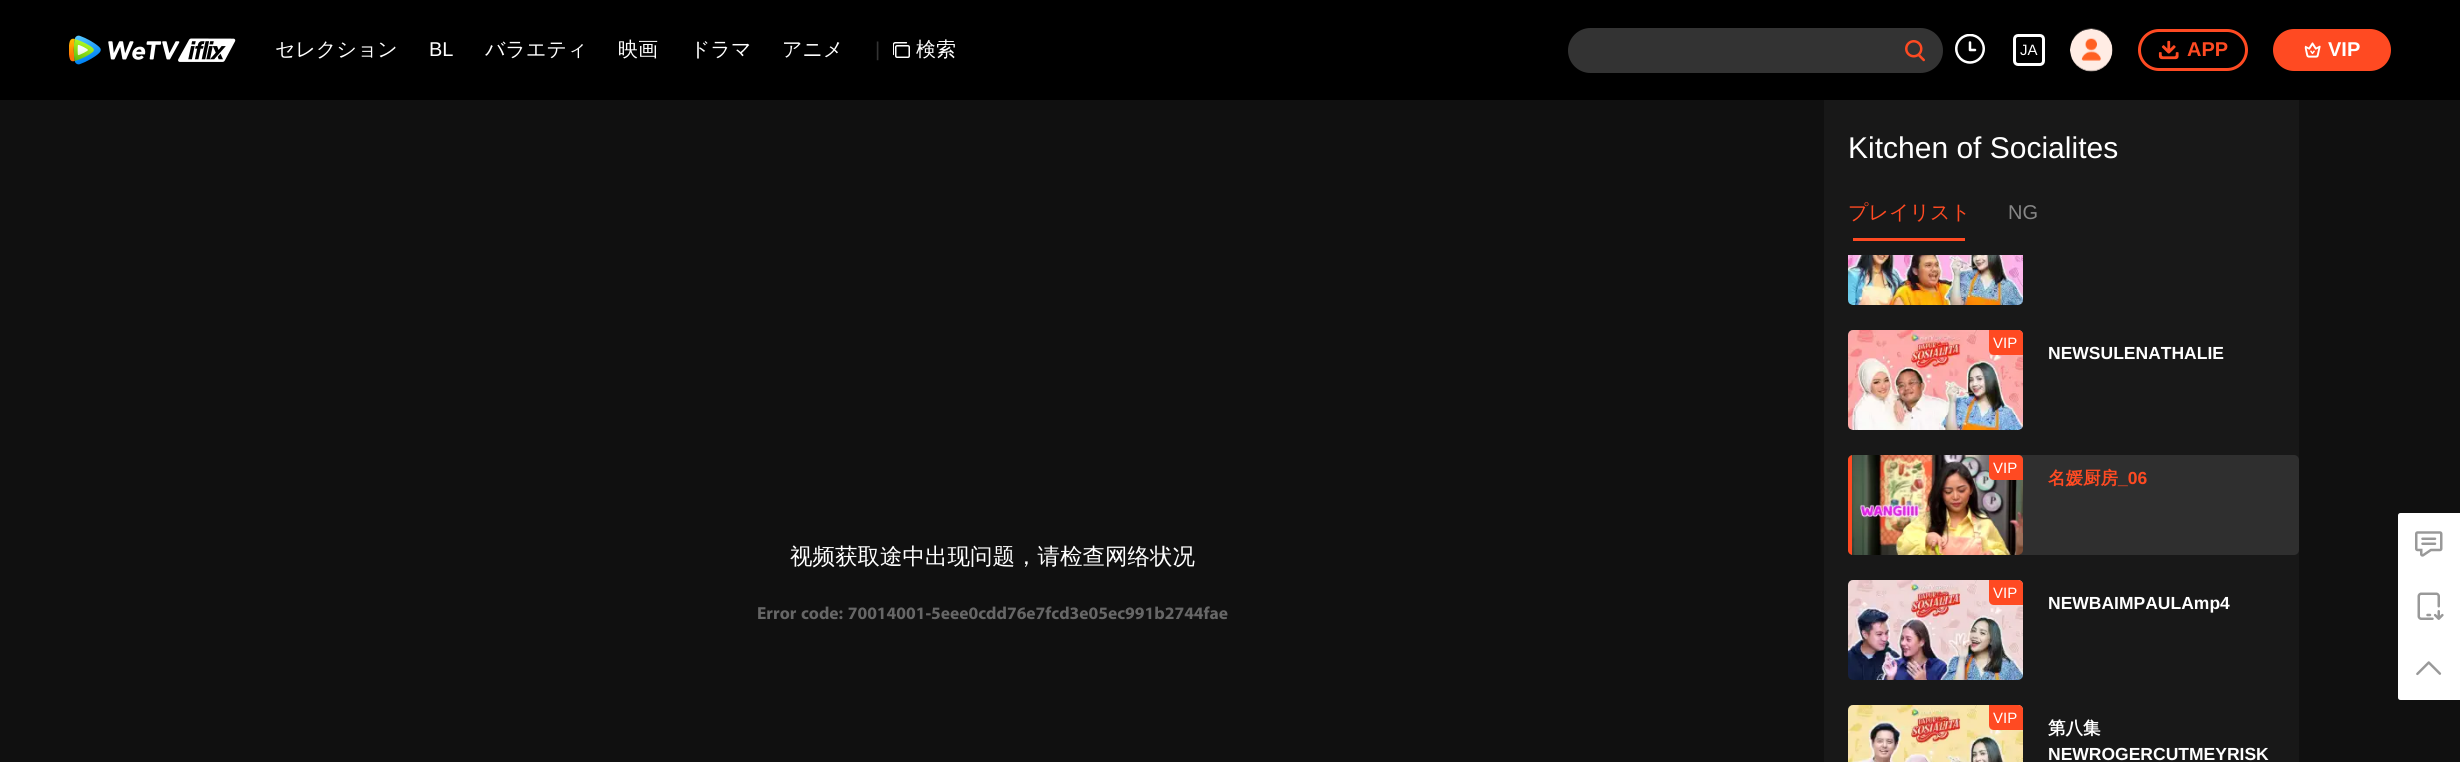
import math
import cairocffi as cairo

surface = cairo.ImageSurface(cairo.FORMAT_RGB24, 2460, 762)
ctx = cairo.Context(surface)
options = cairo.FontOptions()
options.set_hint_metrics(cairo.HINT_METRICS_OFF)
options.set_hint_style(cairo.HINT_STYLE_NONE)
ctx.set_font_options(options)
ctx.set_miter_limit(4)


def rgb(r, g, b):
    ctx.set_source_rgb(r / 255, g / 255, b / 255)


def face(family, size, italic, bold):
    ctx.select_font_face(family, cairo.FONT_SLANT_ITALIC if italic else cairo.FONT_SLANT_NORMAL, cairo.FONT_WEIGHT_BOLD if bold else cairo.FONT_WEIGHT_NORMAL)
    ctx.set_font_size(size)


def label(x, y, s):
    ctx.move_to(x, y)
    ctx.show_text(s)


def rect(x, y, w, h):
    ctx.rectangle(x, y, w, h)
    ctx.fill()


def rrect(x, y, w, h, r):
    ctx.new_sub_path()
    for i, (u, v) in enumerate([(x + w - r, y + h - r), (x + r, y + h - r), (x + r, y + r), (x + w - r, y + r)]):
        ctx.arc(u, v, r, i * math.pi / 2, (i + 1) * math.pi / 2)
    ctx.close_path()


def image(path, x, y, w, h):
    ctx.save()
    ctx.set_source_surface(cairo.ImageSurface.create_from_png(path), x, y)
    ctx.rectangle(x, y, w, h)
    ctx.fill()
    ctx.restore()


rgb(16, 16, 16)
ctx.paint()
rgb(0, 0, 0)
rect(0, 0, 2460, 100)
image('image0.png', 69, 35, 167, 30)
face('WenQuanYi Zen Hei Medium', 20, 0, 0)
rgb(255, 255, 255)
label(275, 56, 'セレクション')
face('Liberation Sans', 20, 0, 0)
label(429, 56, 'BL')
face('WenQuanYi Zen Hei Medium', 20, 0, 0)
label(485, 56, 'バラエティ')
label(618, 56, '映画')
label(690, 56, 'ドラマ')
label(782, 56, 'アニメ')
face('Liberation Sans', 20, 0, 0)
rgb(51, 51, 51)
label(875, 56, '|')
image('image1.png', 893, 42, 17, 16)
face('WenQuanYi Zen Hei Medium', 20, 0, 0)
rgb(255, 255, 255)
label(916, 56, '検索')
rgb(51, 51, 51)
rrect(1568, 28, 375, 45, 22.5)
ctx.fill()
image('image2.png', 1905, 40, 20, 22)
image('image3.png', 1955, 34, 30, 30)
rrect(2014.5, 35.5, 29, 29, 3.5)
rgb(255, 255, 255)
ctx.set_line_width(3)
ctx.stroke()
face('Liberation Sans', 15, 0, 0)
label(2020, 55, 'JA')
image('image4.png', 2070, 28, 43, 44)
rrect(2139.5, 30.5, 107, 39, 19.5)
rgb(255, 74, 34)
ctx.stroke()
image('image5.png', 2158, 40, 21, 20)
face('Liberation Sans', 20, 0, 1)
label(2187, 56, 'APP')
rrect(2273, 29, 118, 42, 21)
ctx.fill()
image('image6.png', 2304, 42, 17, 16)
rgb(255, 255, 255)
label(2328, 56, 'VIP')
face('WenQuanYi Zen Hei Medium', 22.5, 0, 0)
label(790, 564, '视频获取途中出现问题，请检查网络状况')
face('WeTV', 17.5, 0, 1)
rgb(102, 102, 102)
label(757, 619, 'Error code: 70014001-5eee0cdd76e7fcd3e05ec991b2744fae')
rgb(24, 24, 24)
rect(1824, 100, 475, 662)
face('Liberation Sans', 30, 0, 0)
rgb(255, 255, 255)
label(1848, 158, 'Kitchen of Socialites')
face('WenQuanYi Zen Hei Medium', 20, 0, 0)
rgb(255, 74, 34)
label(1848, 219, 'プレイリスト')
rect(1853, 238, 112, 3)
face('Liberation Sans', 20, 0, 0)
rgb(134, 134, 134)
label(2008, 219, 'NG')
image('image7.png', 1848, 255, 175, 50)
image('image8.png', 1848, 330, 175, 100)
rgb(255, 74, 34)
ctx.new_path()
ctx.move_to(1989, 330)
ctx.line_to(2018, 330)
ctx.curve_to(2021, 330, 2023, 332, 2023, 335)
ctx.line_to(2023, 355)
ctx.line_to(1994, 355)
ctx.curve_to(1991, 355, 1989, 353, 1989, 350)
ctx.close_path()
ctx.fill()
face('Liberation Sans', 15, 0, 0)
rgb(255, 255, 255)
label(1993, 348, 'VIP')
face('Liberation Sans', 17.5, 0, 1)
label(2048, 359, 'NEWSULENATHALIE')
rgb(47, 47, 47)
rrect(1848, 455, 451, 100, 5)
ctx.fill()
image('image9.png', 1848, 455, 175, 100)
ctx.save()
rrect(1848, 455, 451, 100, 5)
ctx.clip()
rgb(255, 74, 34)
rect(1848, 455, 4, 100)
ctx.restore()
rgb(255, 74, 34)
ctx.new_path()
ctx.move_to(1989, 455)
ctx.line_to(2018, 455)
ctx.curve_to(2021, 455, 2023, 457, 2023, 460)
ctx.line_to(2023, 480)
ctx.line_to(1994, 480)
ctx.curve_to(1991, 480, 1989, 478, 1989, 475)
ctx.close_path()
ctx.fill()
face('Liberation Sans', 15, 0, 0)
rgb(255, 255, 255)
label(1993, 473, 'VIP')
face('WenQuanYi Zen Hei', 17.5, 0, 1)
rgb(255, 74, 34)
label(2048, 484, '名媛厨房')
face('Liberation Sans', 17.5, 0, 1)
label(2118, 484, '_06')
image('image10.png', 1848, 580, 175, 100)
ctx.new_path()
ctx.move_to(1989, 580)
ctx.line_to(2018, 580)
ctx.curve_to(2021, 580, 2023, 582, 2023, 585)
ctx.line_to(2023, 605)
ctx.line_to(1994, 605)
ctx.curve_to(1991, 605, 1989, 603, 1989, 600)
ctx.close_path()
ctx.fill()
face('Liberation Sans', 15, 0, 0)
rgb(255, 255, 255)
label(1993, 598, 'VIP')
face('Liberation Sans', 17.5, 0, 1)
label(2048, 609, 'NEWBAIMPAULAmp4')
image('image11.png', 1848, 705, 175, 57)
rgb(255, 74, 34)
ctx.new_path()
ctx.move_to(1989, 705)
ctx.line_to(2018, 705)
ctx.curve_to(2021, 705, 2023, 707, 2023, 710)
ctx.line_to(2023, 730)
ctx.line_to(1994, 730)
ctx.curve_to(1991, 730, 1989, 728, 1989, 725)
ctx.close_path()
ctx.fill()
face('Liberation Sans', 15, 0, 0)
rgb(255, 255, 255)
label(1993, 723, 'VIP')
face('WenQuanYi Zen Hei', 17.5, 0, 1)
label(2048, 734, '第八集')
face('Liberation Sans', 17.5, 0, 1)
label(2048, 760, 'NEWROGERCUTMEYRISK')
ctx.new_path()
ctx.move_to(2400.5, 513)
ctx.line_to(2460, 513)
ctx.line_to(2460, 700)
ctx.line_to(2400.5, 700)
ctx.curve_to(2399, 700, 2398, 699, 2398, 697.5)
ctx.line_to(2398, 515.5)
ctx.curve_to(2398, 514, 2399, 513, 2400.5, 513)
ctx.close_path()
ctx.fill()
image('image12.png', 2415, 531, 28, 26)
image('image13.png', 2417, 592, 27, 28)
image('image14.png', 2416, 661, 26, 15)
surface.write_to_png('render.png')
